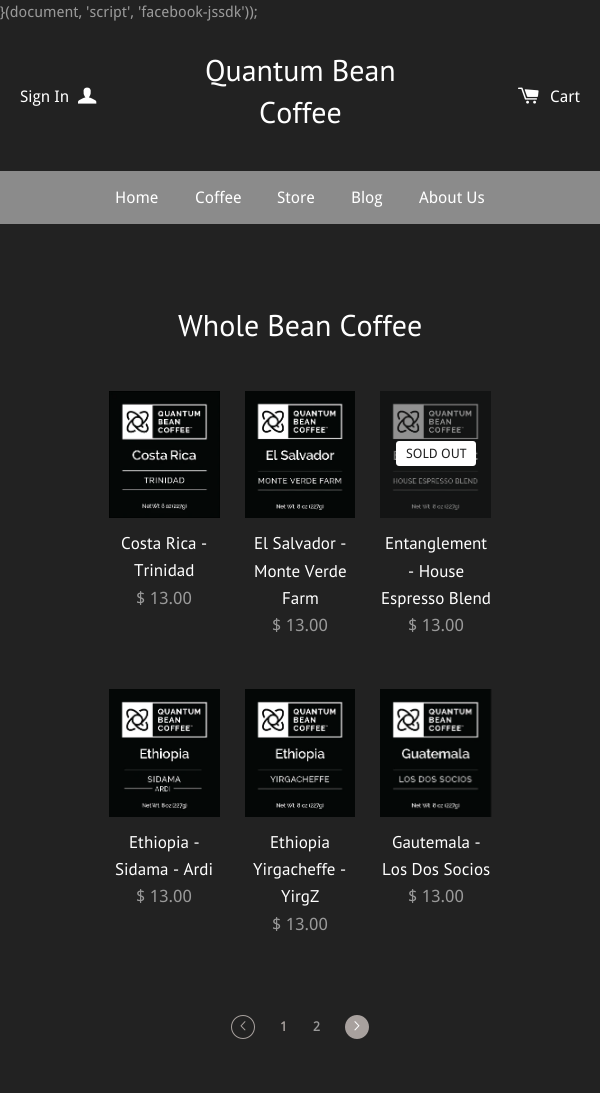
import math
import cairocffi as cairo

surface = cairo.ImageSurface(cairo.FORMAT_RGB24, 600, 1093)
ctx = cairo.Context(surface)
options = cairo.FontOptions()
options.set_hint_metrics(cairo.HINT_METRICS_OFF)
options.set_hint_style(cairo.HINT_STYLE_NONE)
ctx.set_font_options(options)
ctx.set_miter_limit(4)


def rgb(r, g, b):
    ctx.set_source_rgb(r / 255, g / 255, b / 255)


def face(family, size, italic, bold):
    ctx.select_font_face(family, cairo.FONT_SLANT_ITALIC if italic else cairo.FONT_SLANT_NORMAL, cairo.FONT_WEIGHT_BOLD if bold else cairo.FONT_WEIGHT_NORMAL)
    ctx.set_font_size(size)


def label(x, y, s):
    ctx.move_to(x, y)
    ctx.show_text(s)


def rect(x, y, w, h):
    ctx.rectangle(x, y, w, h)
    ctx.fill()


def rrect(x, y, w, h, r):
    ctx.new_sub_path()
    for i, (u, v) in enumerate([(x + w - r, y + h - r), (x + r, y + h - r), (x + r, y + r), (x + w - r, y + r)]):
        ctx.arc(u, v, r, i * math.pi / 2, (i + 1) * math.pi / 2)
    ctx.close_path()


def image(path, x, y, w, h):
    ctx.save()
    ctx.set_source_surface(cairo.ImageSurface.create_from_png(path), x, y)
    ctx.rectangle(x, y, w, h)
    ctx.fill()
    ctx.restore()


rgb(34, 34, 34)
ctx.paint()
face('Droid Sans', 15, 0, 0)
rgb(153, 153, 153)
label(0, 17, '}(document, \'script\', \'facebook-jssdk\'));')
face('Droid Sans', 16, 0, 0)
rgb(255, 255, 255)
label(20, 102, 'Sign In')
image('image0.png', 78, 87, 19, 17)
face('PT Sans', 30, 0, 0)
label(205, 81, 'Quantum Bean')
label(259, 123, 'Coffee')
image('image1.png', 518, 87, 21, 17)
face('Droid Sans', 16, 0, 0)
label(550, 102, 'Cart')
rgb(139, 139, 139)
rect(0, 171, 600, 53)
rgb(255, 255, 255)
label(115, 203, 'Home')
label(195, 203, 'Coffee')
label(277, 203, 'Store')
label(351, 203, 'Blog')
label(419, 203, 'About Us')
face('PT Sans', 30, 0, 0)
label(178, 336, 'Whole Bean Coffee')
image('image2.png', 109, 391, 111, 127)
face('PT Sans', 17, 0, 0)
label(121, 549, 'Costa Rica -')
label(134, 576, 'Trinidad')
face('Droid Sans', 17, 0, 0)
rgb(153, 153, 153)
label(136, 604, '$ 13.00')
image('image3.png', 245, 391, 110, 127)
face('PT Sans', 17, 0, 0)
rgb(255, 255, 255)
label(254, 549, 'El Salvador -')
label(254, 577, 'Monte Verde')
label(282, 604, 'Farm')
face('Droid Sans', 17, 0, 0)
rgb(153, 153, 153)
label(272, 631, '$ 13.00')
image('image4.png', 380, 391, 111, 127)
rgb(255, 255, 255)
rrect(396, 441, 80, 25, 3)
ctx.fill()
face('Droid Sans', 13, 0, 0)
rgb(34, 34, 34)
label(406, 458, 'SOLD OUT')
face('PT Sans', 17, 0, 0)
rgb(255, 255, 255)
label(385, 549, 'Entanglement')
label(408, 577, '- House')
label(381, 604, 'Espresso Blend')
face('Droid Sans', 17, 0, 0)
rgb(153, 153, 153)
label(408, 631, '$ 13.00')
image('image5.png', 109, 689, 111, 128)
face('PT Sans', 17, 0, 0)
rgb(255, 255, 255)
label(129, 848, 'Ethiopia -')
label(115, 875, 'Sidama - Ardi')
face('Droid Sans', 17, 0, 0)
rgb(153, 153, 153)
label(136, 902, '$ 13.00')
image('image6.png', 245, 689, 110, 128)
face('PT Sans', 17, 0, 0)
rgb(255, 255, 255)
label(270, 848, 'Ethiopia')
label(253, 875, 'Yirgacheffe -')
label(281, 902, 'YirgZ')
face('Droid Sans', 17, 0, 0)
rgb(153, 153, 153)
label(272, 930, '$ 13.00')
image('image7.png', 380, 689, 112, 128)
face('PT Sans', 17, 0, 0)
rgb(255, 255, 255)
label(392, 848, 'Gautemala -')
label(382, 875, 'Los Dos Socios')
face('Droid Sans', 17, 0, 0)
rgb(153, 153, 153)
label(408, 902, '$ 13.00')
ctx.new_path()
ctx.arc(243, 1027, 11.5, 0, 2 * math.pi)
rgb(168, 161, 158)
ctx.set_line_width(1)
ctx.stroke()
image('image8.png', 240, 1021, 6, 10)
face('Droid Sans', 13, 0, 1)
label(280, 1031, '1')
rgb(153, 153, 153)
label(313, 1031, '2')
rgb(168, 161, 158)
ctx.new_path()
ctx.arc(357, 1027, 12, 0, 2 * math.pi)
ctx.fill()
image('image9.png', 354, 1021, 6, 10)
surface.write_to_png('render.png')
